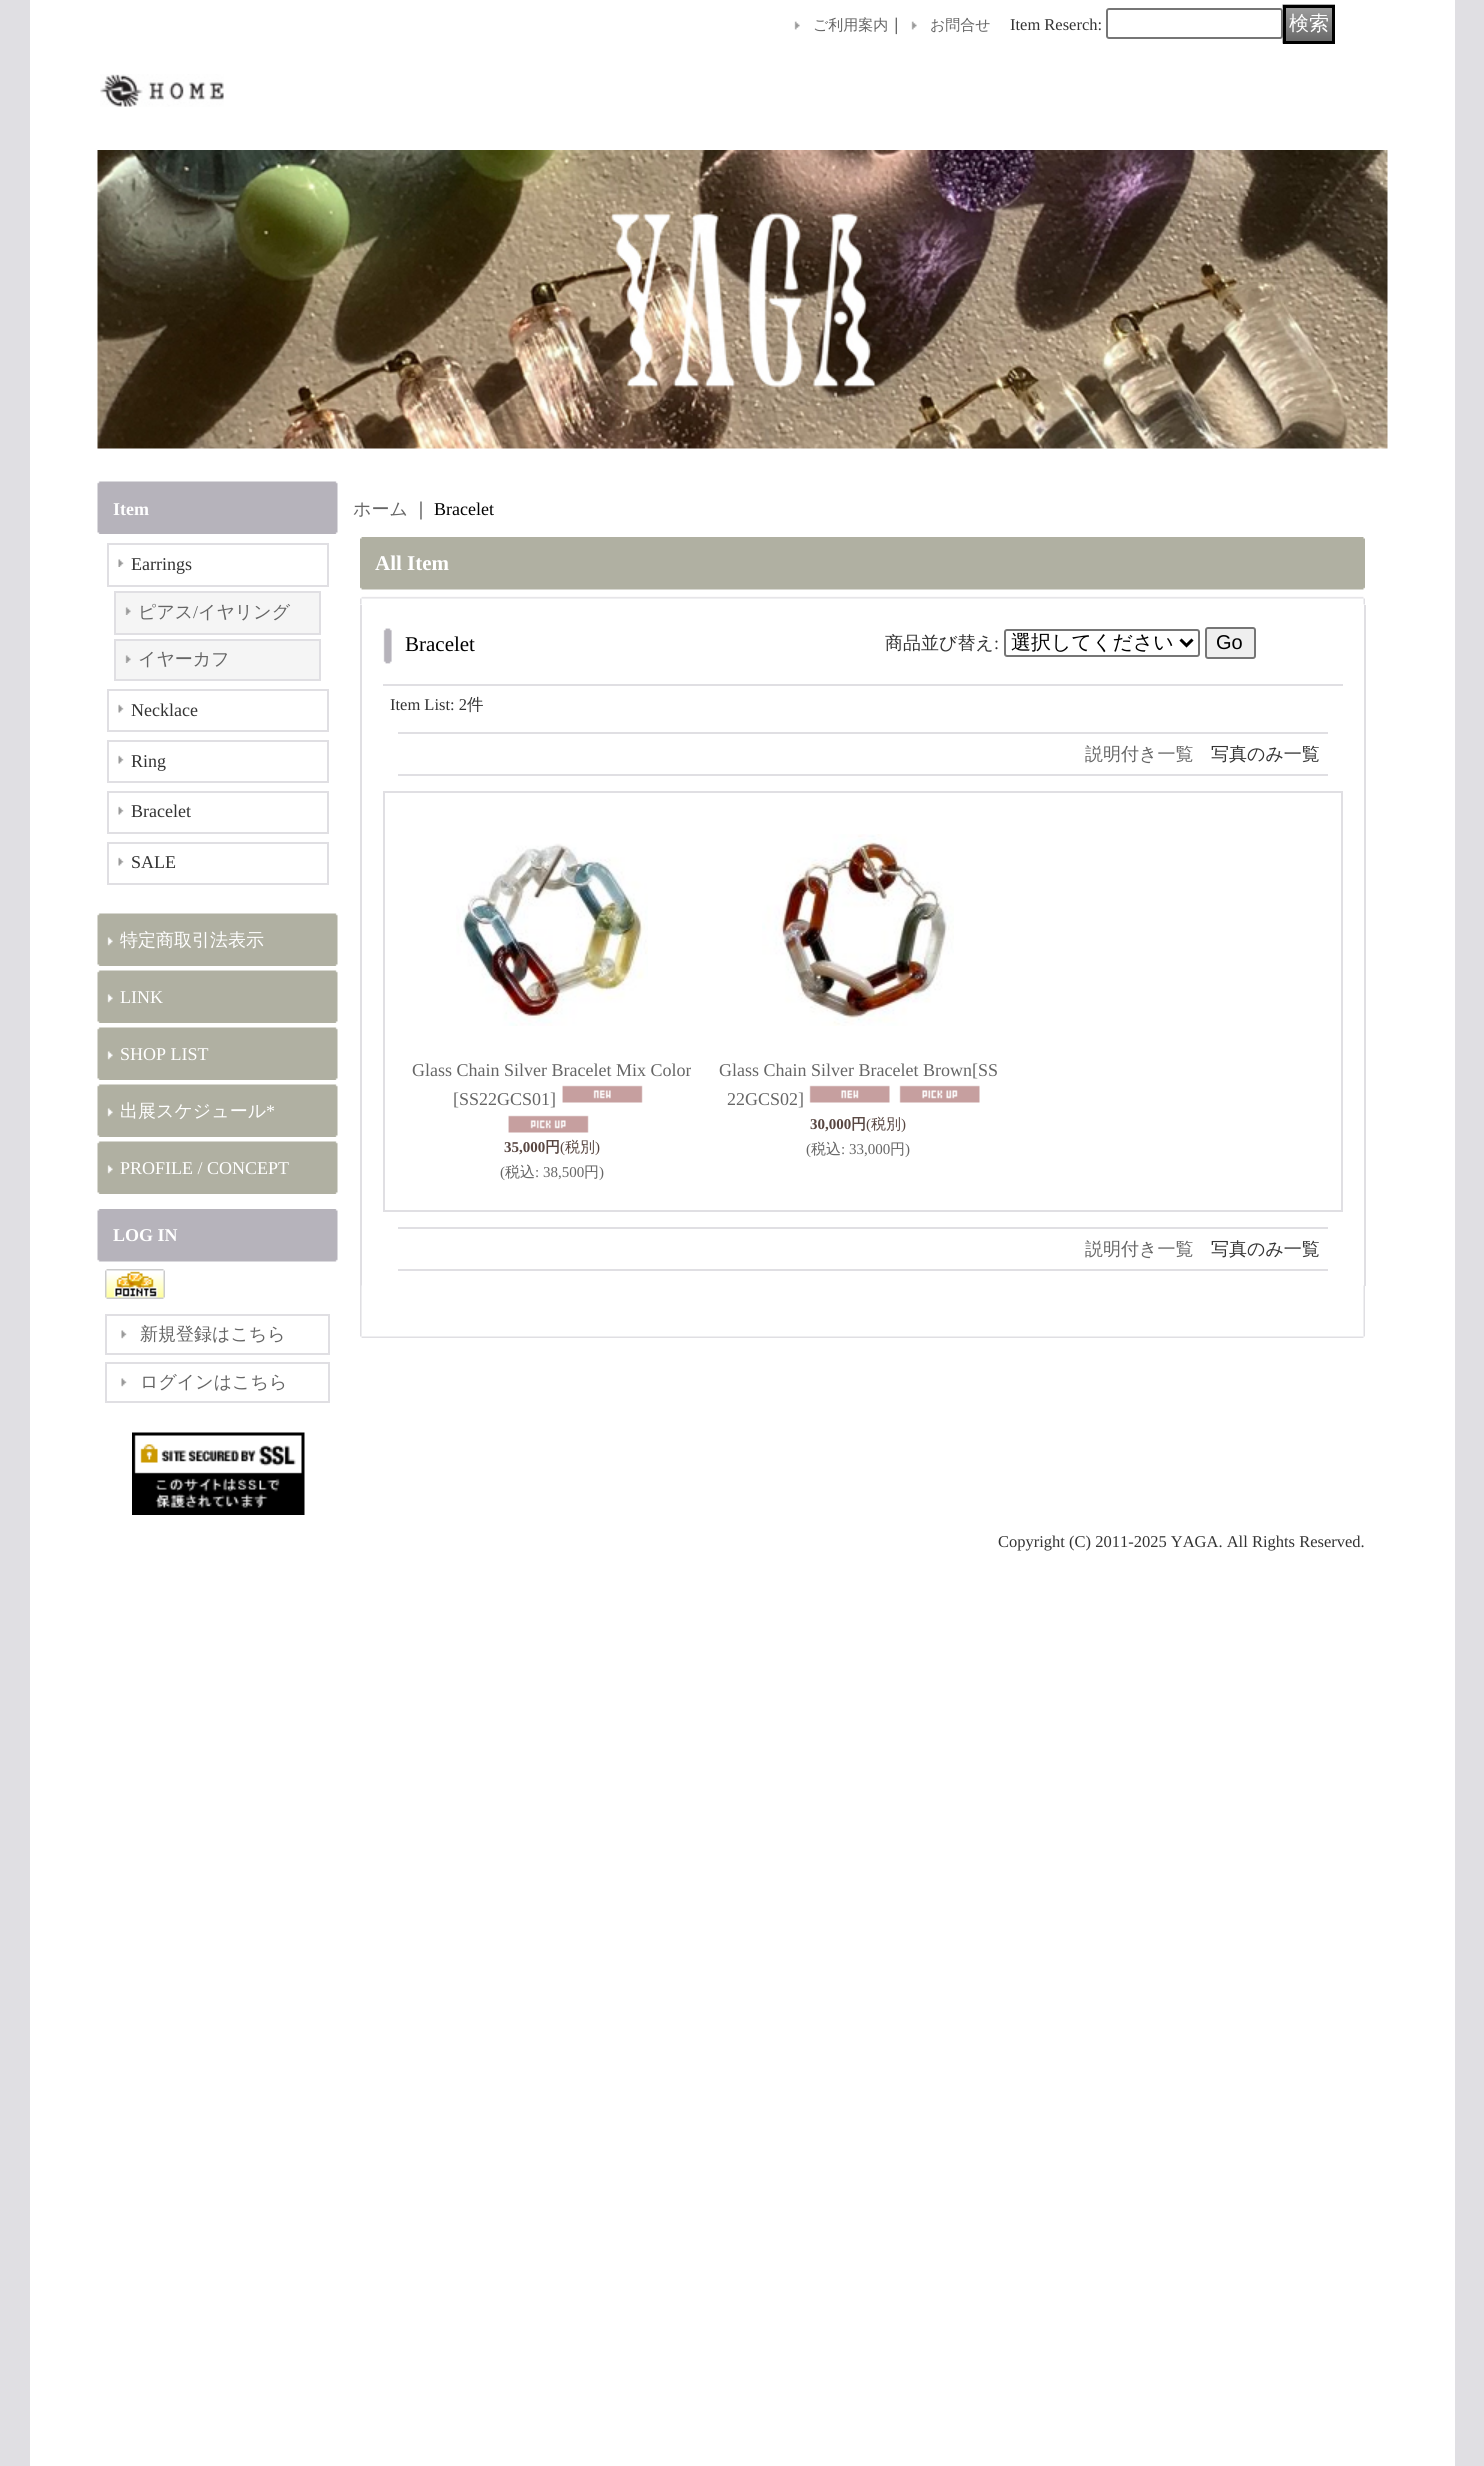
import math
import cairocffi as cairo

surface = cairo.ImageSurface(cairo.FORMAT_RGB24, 1484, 2466)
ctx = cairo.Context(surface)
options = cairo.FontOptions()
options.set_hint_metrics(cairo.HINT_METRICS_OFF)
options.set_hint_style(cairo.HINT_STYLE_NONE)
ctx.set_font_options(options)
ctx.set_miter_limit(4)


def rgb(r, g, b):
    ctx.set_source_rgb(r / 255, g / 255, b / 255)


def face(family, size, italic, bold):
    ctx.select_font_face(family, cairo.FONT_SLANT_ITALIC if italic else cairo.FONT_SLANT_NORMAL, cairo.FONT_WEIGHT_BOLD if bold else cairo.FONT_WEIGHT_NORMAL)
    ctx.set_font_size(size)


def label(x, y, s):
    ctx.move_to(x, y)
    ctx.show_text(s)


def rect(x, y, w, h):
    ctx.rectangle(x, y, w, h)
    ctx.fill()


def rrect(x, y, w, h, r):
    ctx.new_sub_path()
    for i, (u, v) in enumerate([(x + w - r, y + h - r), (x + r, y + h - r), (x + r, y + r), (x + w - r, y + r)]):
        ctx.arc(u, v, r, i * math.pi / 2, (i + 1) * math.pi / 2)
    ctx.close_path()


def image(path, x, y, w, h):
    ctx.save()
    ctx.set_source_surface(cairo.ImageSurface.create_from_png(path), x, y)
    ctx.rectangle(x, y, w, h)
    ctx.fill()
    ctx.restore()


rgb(224, 223, 227)
ctx.paint()
rgb(255, 255, 255)
rect(30, 0, 1425, 2466)
image('image0.png', 97, 150, 1291, 299)
image('image1.png', 794, 21, 6, 9)
face('WenQuanYi Zen Hei Medium', 15, 0, 0)
rgb(102, 102, 102)
label(813, 30, 'ご利用案内')
face('WenQuanYi Zen Hei Medium', 16.5, 0, 0)
rgb(51, 51, 51)
label(888, 30, '｜')
image('image1.png', 911, 21, 6, 9)
face('WenQuanYi Zen Hei Medium', 15, 0, 0)
rgb(102, 102, 102)
label(930, 30, 'お問合せ')
face('Liberation Serif', 16.5, 0, 0)
rgb(51, 51, 51)
label(1010, 30, 'Item Reserch:')
rrect(1107, 9, 175, 29, 2)
rgb(118, 118, 118)
ctx.stroke()
image('image2.png', 1282, 4, 53, 40)
ctx.rectangle(1284.5, 6.5, 49, 36)
rgb(0, 0, 0)
ctx.set_line_width(3)
ctx.stroke()
face('WenQuanYi Zen Hei Medium', 20, 0, 0)
rgb(255, 255, 255)
label(1289, 30, '検索')
image('image3.png', 100, 74, 124, 33)
image('image4.png', 97, 481, 241, 53)
face('Liberation Serif', 18, 0, 1)
label(113, 515, 'Item')
image('image5.png', 118, 559, 6, 8)
ctx.rectangle(108, 544, 220, 42)
rgb(224, 223, 227)
ctx.set_line_width(2)
ctx.stroke()
face('Liberation Serif', 18, 0, 0)
rgb(51, 51, 51)
label(131, 570, 'Earrings')
rgb(245, 245, 245)
rect(116, 593, 203, 40)
image('image6.png', 125, 607, 6, 8)
ctx.rectangle(115, 592, 205, 42)
rgb(224, 223, 227)
ctx.stroke()
face('WenQuanYi Zen Hei Medium', 18, 0, 0)
rgb(102, 102, 102)
label(138, 618, 'ピアス')
face('Liberation Serif', 18, 0, 0)
label(193, 618, '/')
face('WenQuanYi Zen Hei Medium', 18, 0, 0)
label(198, 618, 'イヤリング')
rgb(245, 245, 245)
rect(116, 641, 203, 38)
image('image6.png', 125, 655, 6, 8)
ctx.rectangle(115, 640, 205, 40)
rgb(224, 223, 227)
ctx.stroke()
rgb(102, 102, 102)
label(138, 665, 'イヤーカフ')
image('image7.png', 118, 704, 6, 9)
ctx.rectangle(108, 690, 220, 41)
rgb(224, 223, 227)
ctx.stroke()
face('Liberation Serif', 18, 0, 0)
rgb(51, 51, 51)
label(131, 716, 'Necklace')
image('image7.png', 118, 755, 6, 9)
ctx.rectangle(108, 741, 220, 41)
rgb(224, 223, 227)
ctx.stroke()
rgb(51, 51, 51)
label(131, 767, 'Ring')
image('image7.png', 118, 806, 6, 9)
ctx.rectangle(108, 792, 220, 41)
rgb(224, 223, 227)
ctx.stroke()
rgb(51, 51, 51)
label(131, 817, 'Bracelet')
image('image7.png', 118, 857, 6, 9)
ctx.rectangle(108, 843, 220, 41)
rgb(224, 223, 227)
ctx.stroke()
rgb(51, 51, 51)
label(131, 868, 'SALE')
image('image8.png', 97, 913, 241, 53)
face('WenQuanYi Zen Hei Medium', 18, 0, 0)
rgb(255, 255, 255)
label(120, 946, '特定商取引法表示')
image('image8.png', 97, 970, 241, 53)
face('Liberation Serif', 18, 0, 0)
label(120, 1003, 'LINK')
image('image8.png', 97, 1027, 241, 53)
label(120, 1060, 'SHOP LIST')
image('image8.png', 97, 1084, 241, 53)
face('WenQuanYi Zen Hei Medium', 18, 0, 0)
label(120, 1117, '出展スケジュール')
face('Liberation Serif', 18, 0, 0)
label(266, 1117, '*')
image('image8.png', 97, 1141, 241, 53)
label(120, 1174, 'PROFILE / CONCEPT')
image('image9.png', 97, 1209, 241, 53)
face('Liberation Serif', 18, 0, 1)
label(113, 1241, 'LOG IN')
image('image10.png', 105, 1269, 60, 30)
ctx.rectangle(106, 1315, 223, 39)
rgb(224, 223, 227)
ctx.stroke()
image('image11.png', 121, 1330, 6, 9)
face('WenQuanYi Zen Hei Medium', 18, 0, 0)
rgb(102, 102, 102)
label(140, 1340, '新規登録はこちら')
ctx.rectangle(106, 1363, 223, 39)
rgb(224, 223, 227)
ctx.stroke()
image('image11.png', 121, 1378, 6, 9)
rgb(102, 102, 102)
label(140, 1388, 'ログインはこちら')
image('image12.png', 132, 1432, 173, 83)
label(353, 515, 'ホーム')
rgb(51, 51, 51)
label(412, 515, '｜')
face('Liberation Serif', 18, 0, 0)
rgb(0, 0, 0)
label(434, 515, 'Bracelet')
image('image13.png', 360, 537, 1005, 68)
face('Liberation Serif', 21, 0, 1)
rgb(255, 255, 255)
label(375, 570, 'All Item')
rgb(224, 223, 227)
rect(1364, 605, 2, 681)
rect(360, 605, 2, 681)
image('image14.png', 383, 628, 9, 36)
face('Liberation Serif', 21, 0, 0)
rgb(0, 0, 0)
label(405, 651, 'Bracelet')
face('WenQuanYi Zen Hei Medium', 18, 0, 0)
rgb(51, 51, 51)
label(885, 649, '商品並び替え')
face('Liberation Serif', 18, 0, 0)
label(994, 649, ':')
rrect(1005, 630, 194, 26, 2)
rgb(118, 118, 118)
ctx.stroke()
ctx.new_path()
ctx.move_to(1180.5, 639.5)
ctx.line_to(1186.5, 645.5)
ctx.line_to(1192.5, 639.5)
rgb(0, 0, 0)
ctx.set_line_width(3)
ctx.stroke()
face('WenQuanYi Zen Hei Medium', 20, 0, 0)
label(1011, 649, '選択してください')
rgb(239, 239, 239)
rrect(1206, 628, 49, 30, 2)
ctx.fill_preserve()
rgb(118, 118, 118)
ctx.set_line_width(2)
ctx.stroke()
face('Liberation Sans', 20, 0, 0)
rgb(0, 0, 0)
label(1216, 649, 'Go')
rgb(224, 223, 227)
rect(383, 684, 960, 2)
face('Liberation Serif', 16.5, 0, 0)
rgb(51, 51, 51)
label(390, 710, 'Item List: 2')
face('WenQuanYi Zen Hei Medium', 16.5, 0, 0)
label(467, 710, '件')
rgb(224, 223, 227)
rect(398, 732, 930, 2)
rect(398, 774, 930, 2)
face('WenQuanYi Zen Hei Medium', 18, 0, 0)
rgb(102, 102, 102)
label(1085, 760, '説明付き一覧')
rgb(51, 51, 51)
label(1211, 760, '写真のみ一覧')
ctx.rectangle(384, 792, 958, 419)
rgb(224, 223, 227)
ctx.stroke()
image('image15.png', 456, 843, 192, 183)
face('Liberation Serif', 18, 0, 0)
rgb(102, 102, 102)
label(412, 1076, 'Glass Chain Silver Bracelet Mix Color')
label(453, 1105, '[SS22GCS01]')
image('image16.png', 562, 1085, 81, 18)
image('image17.png', 508, 1115, 81, 18)
face('Liberation Serif', 15, 0, 1)
rgb(88, 70, 65)
label(504, 1152, '35,000')
face('WenQuanYi Zen Hei', 15, 0, 1)
label(545, 1152, '円')
face('Liberation Serif', 15, 0, 0)
label(560, 1152, '(')
face('WenQuanYi Zen Hei Medium', 15, 0, 0)
label(565, 1152, '税別')
face('Liberation Serif', 15, 0, 0)
label(595, 1152, ')')
rgb(102, 102, 102)
label(500, 1177, '(')
face('WenQuanYi Zen Hei Medium', 15, 0, 0)
label(505, 1177, '税込')
face('Liberation Serif', 15, 0, 0)
label(535, 1177, ': 38,500')
face('WenQuanYi Zen Hei Medium', 15, 0, 0)
label(584, 1177, '円')
face('Liberation Serif', 15, 0, 0)
label(599, 1177, ')')
image('image18.png', 762, 834, 192, 192)
face('Liberation Serif', 18, 0, 0)
label(719, 1076, 'Glass Chain Silver Bracelet Brown[SS')
label(727, 1105, '22GCS02]')
image('image19.png', 809, 1085, 81, 18)
image('image20.png', 899, 1085, 81, 18)
face('Liberation Serif', 15, 0, 1)
rgb(88, 70, 65)
label(810, 1129, '30,000')
face('WenQuanYi Zen Hei', 15, 0, 1)
label(851, 1129, '円')
face('Liberation Serif', 15, 0, 0)
label(866, 1129, '(')
face('WenQuanYi Zen Hei Medium', 15, 0, 0)
label(871, 1129, '税別')
face('Liberation Serif', 15, 0, 0)
label(901, 1129, ')')
rgb(102, 102, 102)
label(806, 1154, '(')
face('WenQuanYi Zen Hei Medium', 15, 0, 0)
label(811, 1154, '税込')
face('Liberation Serif', 15, 0, 0)
label(841, 1154, ': 33,000')
face('WenQuanYi Zen Hei Medium', 15, 0, 0)
label(890, 1154, '円')
face('Liberation Serif', 15, 0, 0)
label(905, 1154, ')')
rgb(224, 223, 227)
rect(398, 1227, 930, 2)
rect(398, 1269, 930, 2)
face('WenQuanYi Zen Hei Medium', 18, 0, 0)
rgb(102, 102, 102)
label(1085, 1255, '説明付き一覧')
rgb(51, 51, 51)
label(1211, 1255, '写真のみ一覧')
image('image21.png', 360, 1285, 1005, 53)
face('Liberation Serif', 16.5, 0, 0)
label(998, 1547, 'Copyright (C) 2011-2025 YAGA. All Rights Reserved.')
surface.write_to_png('render.png')
